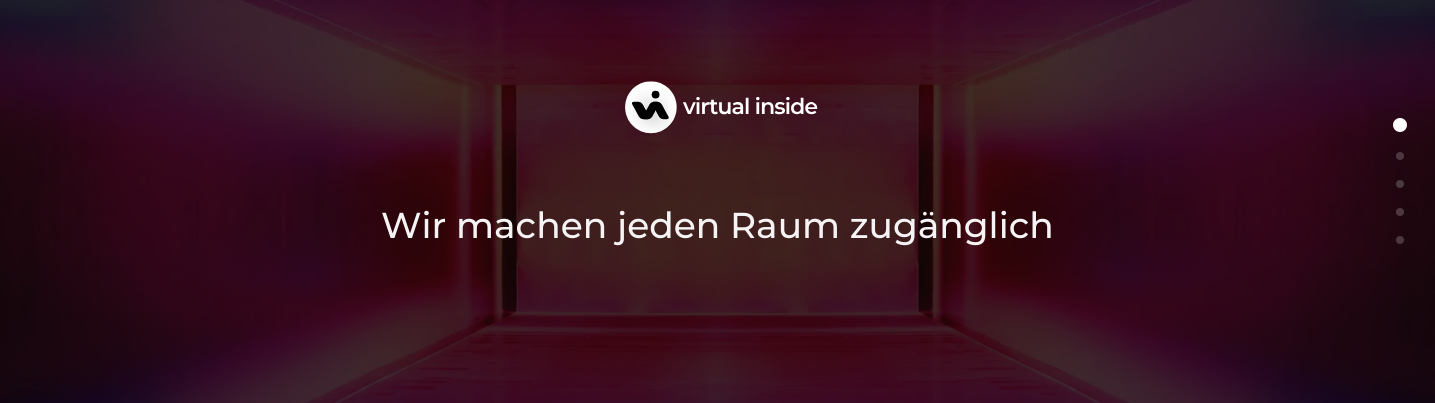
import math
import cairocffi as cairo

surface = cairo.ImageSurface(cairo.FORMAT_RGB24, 1435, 403)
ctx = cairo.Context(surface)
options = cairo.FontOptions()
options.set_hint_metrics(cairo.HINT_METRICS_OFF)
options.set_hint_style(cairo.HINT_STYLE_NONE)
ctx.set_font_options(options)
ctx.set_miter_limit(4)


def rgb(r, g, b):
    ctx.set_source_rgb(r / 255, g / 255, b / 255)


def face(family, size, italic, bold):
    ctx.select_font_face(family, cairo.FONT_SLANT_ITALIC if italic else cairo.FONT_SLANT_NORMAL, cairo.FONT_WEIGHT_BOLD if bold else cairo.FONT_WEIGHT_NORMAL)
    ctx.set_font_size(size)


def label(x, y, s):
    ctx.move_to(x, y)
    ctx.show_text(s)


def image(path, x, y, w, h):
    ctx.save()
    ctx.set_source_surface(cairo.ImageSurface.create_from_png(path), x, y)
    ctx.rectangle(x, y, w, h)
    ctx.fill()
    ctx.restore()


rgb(255, 255, 255)
ctx.paint()
image('image0.png', 0, 0, 1435, 403)
image('image1.png', 625, 81, 193, 53)
face('Montserrat Thin', 36, 0, 0)
rgb(245, 243, 243)
label(381, 238, 'Wir machen jeden Raum zugänglich')
rgb(255, 255, 255)
ctx.new_path()
ctx.arc(1400, 125, 7, 0, 2 * math.pi)
ctx.fill()
rgb(78, 56, 64)
ctx.arc(1400, 156, 4, 0, 2 * math.pi)
ctx.fill()
rgb(76, 56, 63)
ctx.arc(1400, 184, 4, 0, 2 * math.pi)
ctx.fill()
ctx.set_source_rgba(1, 1, 1, 0.2)
ctx.arc(1400, 212, 4, 0, 2 * math.pi)
ctx.fill()
ctx.arc(1400, 240, 4, 0, 2 * math.pi)
ctx.fill()
surface.write_to_png('render.png')
